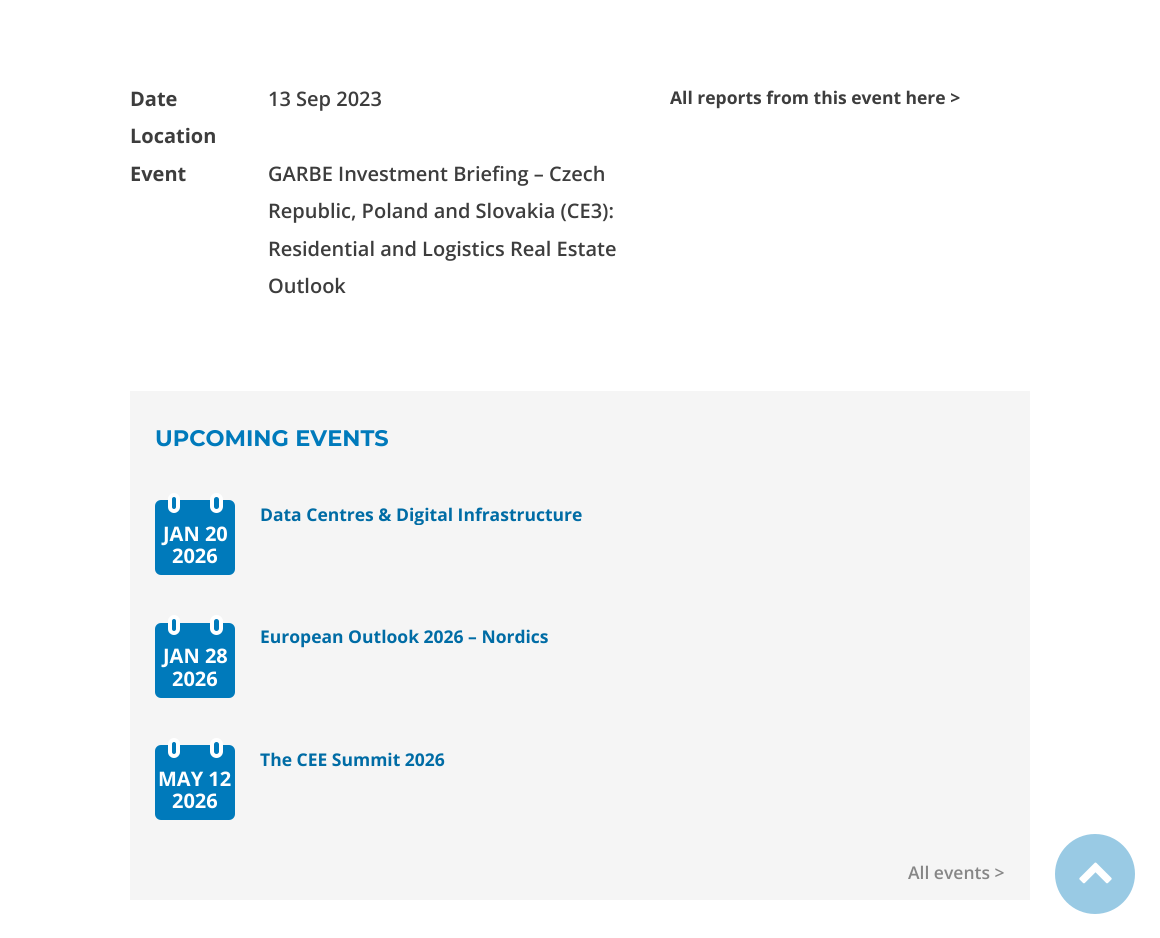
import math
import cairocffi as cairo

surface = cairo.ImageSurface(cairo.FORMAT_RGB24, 1160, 938)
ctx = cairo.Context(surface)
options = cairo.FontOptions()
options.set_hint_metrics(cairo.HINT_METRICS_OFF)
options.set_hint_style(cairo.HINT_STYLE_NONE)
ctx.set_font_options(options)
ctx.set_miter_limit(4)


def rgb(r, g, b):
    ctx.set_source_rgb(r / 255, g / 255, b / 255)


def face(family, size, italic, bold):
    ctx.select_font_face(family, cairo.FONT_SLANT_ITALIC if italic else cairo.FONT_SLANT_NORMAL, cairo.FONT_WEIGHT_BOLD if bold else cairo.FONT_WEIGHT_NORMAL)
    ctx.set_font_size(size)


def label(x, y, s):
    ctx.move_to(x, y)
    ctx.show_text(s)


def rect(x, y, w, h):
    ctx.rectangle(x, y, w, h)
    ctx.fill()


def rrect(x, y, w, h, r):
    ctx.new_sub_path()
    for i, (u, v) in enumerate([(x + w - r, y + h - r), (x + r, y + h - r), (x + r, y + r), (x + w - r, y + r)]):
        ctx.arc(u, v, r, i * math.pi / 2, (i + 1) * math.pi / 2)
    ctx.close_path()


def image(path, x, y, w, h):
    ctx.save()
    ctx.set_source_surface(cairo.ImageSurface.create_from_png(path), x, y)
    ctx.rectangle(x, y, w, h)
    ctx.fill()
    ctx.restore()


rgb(255, 255, 255)
ctx.paint()
face('Open Sans', 20, 0, 1)
rgb(61, 61, 61)
label(130, 106, 'Date')
face('Open Sans SemiBold', 20, 0, 0)
label(268, 106, '13 Sep 2023')
face('Open Sans', 20, 0, 1)
label(130, 143, 'Location')
label(130, 181, 'Event')
face('Open Sans SemiBold', 20, 0, 0)
label(268, 181, 'GARBE Investment Briefing – Czech')
label(268, 218, 'Republic, Poland and Slovakia (CE3):')
label(268, 256, 'Residential and Logistics Real Estate')
label(268, 293, 'Outlook')
face('Open Sans', 17.5, 0, 1)
label(670, 104, 'All reports from this event here >')
rgb(245, 245, 245)
rect(130, 391, 900, 509)
face('Montserrat', 22.5, 0, 1)
rgb(0, 122, 187)
label(155, 446, 'UPCOMING EVENTS')
ctx.save()
ctx.rectangle(260, 503, 745, 22)
ctx.clip()
face('Open Sans', 17.5, 0, 1)
rgb(0, 108, 165)
label(260, 521, 'Data Centres & Digital Infrastructure')
ctx.restore()
rrect(155, 500, 80, 75, 6)
ctx.fill()
rrect(170, 495, 8, 16, 4)
ctx.fill_preserve()
rgb(255, 255, 255)
ctx.set_line_width(4)
ctx.stroke()
rgb(0, 122, 187)
rrect(212, 495, 9, 16, 4.5)
ctx.fill_preserve()
rgb(255, 255, 255)
ctx.stroke()
face('Open Sans', 20, 0, 1)
label(163, 541, 'JAN 20')
label(172, 563, '2026')
face('Open Sans', 17.5, 0, 1)
rgb(0, 108, 165)
label(260, 643, 'European Outlook 2026 – Nordics')
rgb(0, 122, 187)
rrect(155, 623, 80, 75, 6)
ctx.fill()
rrect(170, 617, 8, 16, 4)
ctx.fill_preserve()
rgb(255, 255, 255)
ctx.stroke()
rgb(0, 122, 187)
rrect(212, 617, 9, 16, 4.5)
ctx.fill_preserve()
rgb(255, 255, 255)
ctx.stroke()
face('Open Sans', 20, 0, 1)
label(163, 663, 'JAN 28')
label(172, 686, '2026')
face('Open Sans', 17.5, 0, 1)
rgb(0, 108, 165)
label(260, 766, 'The CEE Summit 2026')
rgb(0, 122, 187)
rrect(155, 745, 80, 75, 6)
ctx.fill()
rrect(170, 740, 8, 16, 4)
ctx.fill_preserve()
rgb(255, 255, 255)
ctx.stroke()
rgb(0, 122, 187)
rrect(212, 740, 9, 16, 4.5)
ctx.fill_preserve()
rgb(255, 255, 255)
ctx.stroke()
face('Open Sans', 20, 0, 1)
label(158, 786, 'MAY 12')
label(172, 808, '2026')
face('Open Sans SemiBold', 17.5, 0, 0)
rgb(134, 134, 134)
label(908, 879, 'All events >')
rgb(153, 202, 228)
ctx.new_path()
ctx.arc(1095, 874, 40, 0, 2 * math.pi)
ctx.fill()
image('image0.png', 1079, 862, 33, 22)
surface.write_to_png('render.png')
